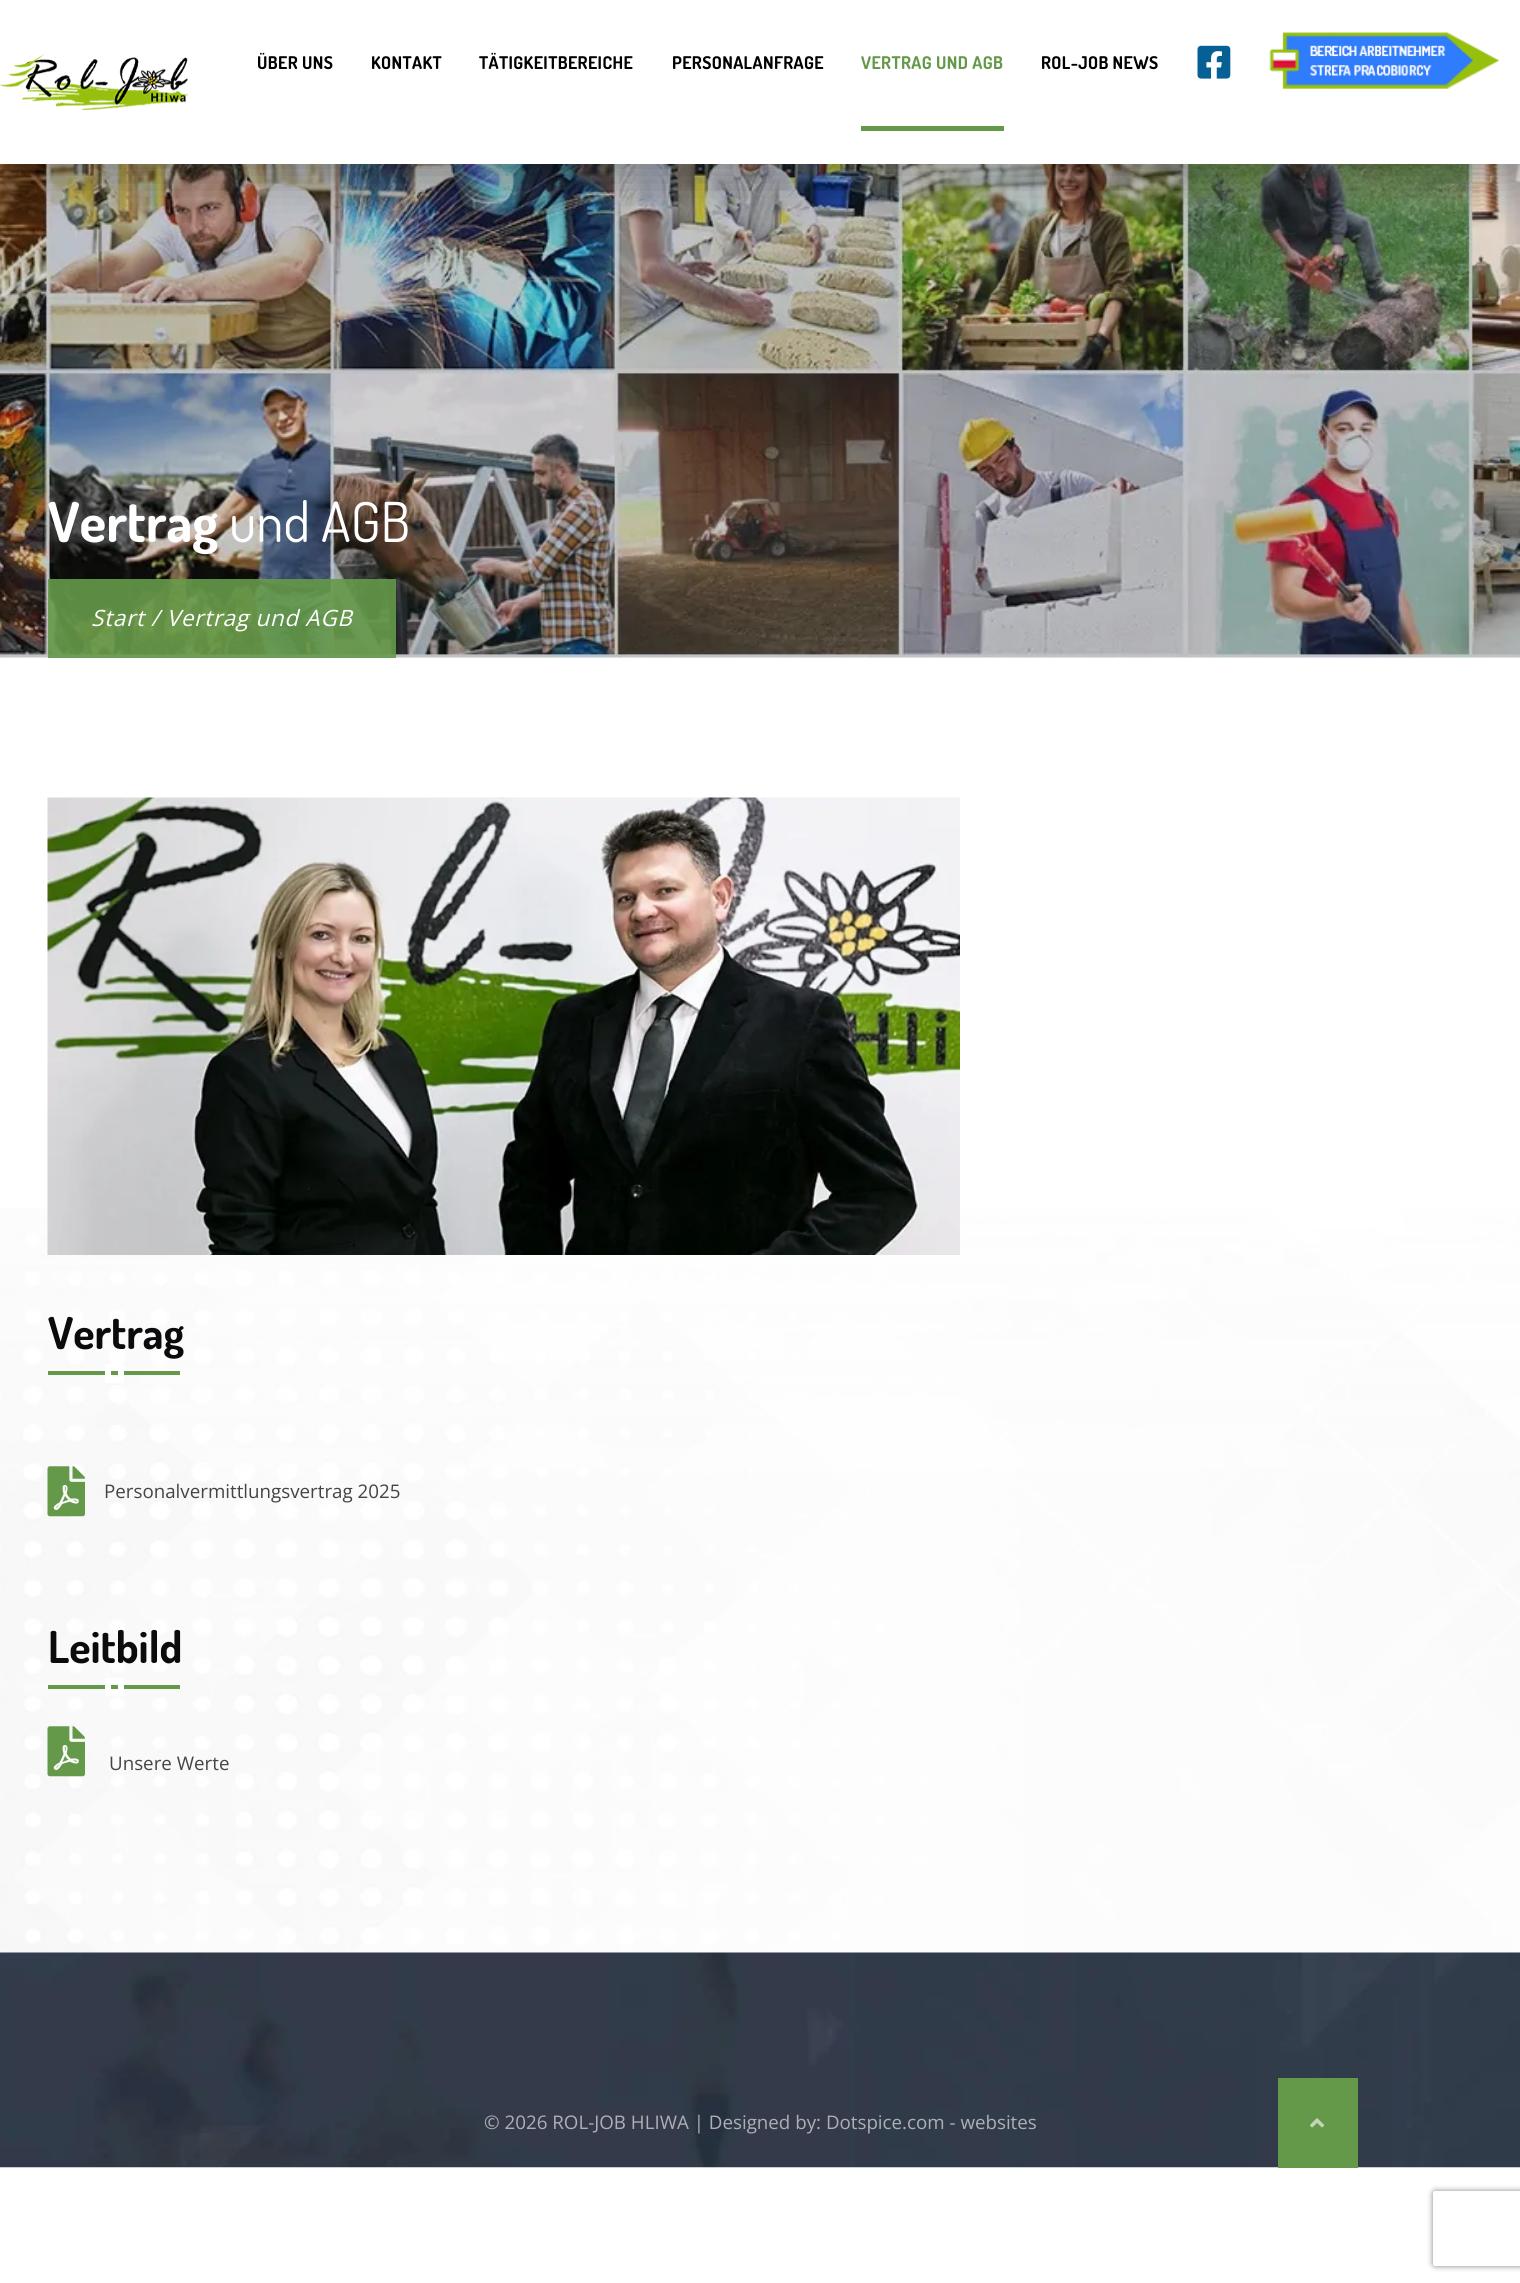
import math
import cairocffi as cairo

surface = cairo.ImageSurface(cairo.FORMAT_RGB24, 1520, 2283)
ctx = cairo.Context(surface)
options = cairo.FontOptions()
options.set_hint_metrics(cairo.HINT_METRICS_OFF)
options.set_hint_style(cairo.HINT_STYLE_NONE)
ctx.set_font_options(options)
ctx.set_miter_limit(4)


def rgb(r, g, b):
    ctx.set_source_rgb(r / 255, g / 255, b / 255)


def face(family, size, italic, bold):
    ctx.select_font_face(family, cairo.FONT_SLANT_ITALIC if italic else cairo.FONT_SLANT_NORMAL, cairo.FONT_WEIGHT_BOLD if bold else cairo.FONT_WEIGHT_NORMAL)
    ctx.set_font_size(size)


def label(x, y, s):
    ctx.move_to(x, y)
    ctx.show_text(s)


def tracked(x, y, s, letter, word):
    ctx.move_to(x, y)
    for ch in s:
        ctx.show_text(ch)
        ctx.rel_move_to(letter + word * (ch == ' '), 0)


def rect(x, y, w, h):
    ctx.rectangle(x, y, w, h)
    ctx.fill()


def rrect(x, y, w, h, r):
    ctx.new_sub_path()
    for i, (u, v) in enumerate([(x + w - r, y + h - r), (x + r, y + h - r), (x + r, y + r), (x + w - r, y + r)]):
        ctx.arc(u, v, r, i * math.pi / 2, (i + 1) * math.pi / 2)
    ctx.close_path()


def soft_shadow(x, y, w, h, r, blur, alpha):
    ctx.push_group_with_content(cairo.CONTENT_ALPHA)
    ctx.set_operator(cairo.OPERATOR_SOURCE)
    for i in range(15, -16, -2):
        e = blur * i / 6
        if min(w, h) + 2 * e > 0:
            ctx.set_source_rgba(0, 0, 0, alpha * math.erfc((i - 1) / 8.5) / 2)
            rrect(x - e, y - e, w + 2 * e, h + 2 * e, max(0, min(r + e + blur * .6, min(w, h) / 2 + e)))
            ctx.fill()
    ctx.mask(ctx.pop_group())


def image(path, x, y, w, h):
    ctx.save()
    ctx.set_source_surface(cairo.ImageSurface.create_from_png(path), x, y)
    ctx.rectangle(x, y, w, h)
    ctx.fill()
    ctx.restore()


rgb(255, 255, 255)
ctx.paint()
image('image3.png', 0, 164, 1520, 494)
rgb(0, 0, 0)
soft_shadow(0, 16, 1520, 164, 0, 22, 0.3)
rgb(255, 255, 255)
rect(0, 0, 1520, 164)
image('image0.png', 0, 54, 188, 56)
face('Dosis', 17.5, 0, 1)
rgb(0, 0, 0)
tracked(257, 69, 'ÜBER UNS', 0.4, 0)
tracked(371, 69, 'KONTAKT', 0.4, 0)
tracked(479, 69, 'TÄTIGKEITBEREICHE', 0.4, 0)
tracked(672, 69, 'PERSONALANFRAGE', 0.4, 0)
rgb(101, 153, 74)
tracked(861, 69, 'VERTRAG UND AGB', 0.4, 0)
rect(861, 126, 143, 5)
rgb(0, 0, 0)
tracked(1041, 69, 'ROL-JOB NEWS', 0.4, 0)
image('image1.png', 1197, 45, 34, 34)
image('image2.png', 1269, 32, 230, 57)
face('Dosis', 55, 0, 1)
rgb(255, 255, 255)
label(48, 542, 'Vertrag')
face('Dosis', 55, 0, 0)
label(229, 542, 'und AGB')
ctx.set_source_rgba(0.396, 0.6, 0.29, 0.9)
rect(48, 579, 348, 79)
face('Open Sans', 22.5, 1, 0)
rgb(255, 255, 255)
tracked(91, 626, 'Start / Vertrag und AGB', 0.7, 0)
image('image9.png', 0, 1208, 1520, 745)
image('image4.png', 47, 797, 913, 458)
face('Dosis', 44, 0, 1)
rgb(11, 11, 13)
label(48, 1349, 'Vertrag')
rgb(101, 153, 74)
rect(48, 1371, 132, 4)
ctx.rectangle(108, 1367, 13, 13)
rgb(255, 255, 255)
ctx.set_line_width(6)
ctx.stroke()
image('image5.png', 47, 1466, 38, 51)
face('Open Sans', 18.75, 0, 0)
rgb(68, 68, 68)
label(104, 1498, 'Personalvermittlungsvertrag 2025')
face('Dosis', 44, 0, 1)
rgb(11, 11, 13)
label(48, 1663, 'Leitbild')
rgb(101, 153, 74)
rect(48, 1685, 132, 4)
ctx.rectangle(108, 1681, 13, 12)
rgb(255, 255, 255)
ctx.stroke()
image('image6.png', 47, 1726, 38, 51)
face('Open Sans', 18.75, 0, 0)
rgb(68, 68, 68)
label(109, 1770, 'Unsere Werte')
image('image7.png', 0, 1952, 1520, 216)
rgb(173, 176, 182)
label(484, 2129, '© 2026 ROL-JOB HLIWA | Designed by: Dotspice.com - websites')
rgb(101, 153, 74)
rect(1278, 2078, 80, 90)
image('image8.png', 1310, 2118, 15, 10)
ctx.save()
ctx.set_fill_rule(cairo.FILL_RULE_EVEN_ODD)
ctx.new_path()
ctx.move_to(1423, 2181)
ctx.line_to(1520, 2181)
ctx.line_to(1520, 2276)
ctx.line_to(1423, 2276)
ctx.close_path()
ctx.move_to(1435.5, 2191)
ctx.line_to(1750.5, 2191)
ctx.curve_to(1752, 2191, 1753, 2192, 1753, 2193.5)
ctx.line_to(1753, 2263.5)
ctx.curve_to(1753, 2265, 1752, 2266, 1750.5, 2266)
ctx.line_to(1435.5, 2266)
ctx.curve_to(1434, 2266, 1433, 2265, 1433, 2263.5)
ctx.line_to(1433, 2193.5)
ctx.curve_to(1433, 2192, 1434, 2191, 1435.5, 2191)
ctx.close_path()
ctx.clip()
rgb(128, 128, 128)
soft_shadow(1433, 2191, 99, 75, 2.5, 3, 1)
ctx.restore()
surface.write_to_png('render.png')
